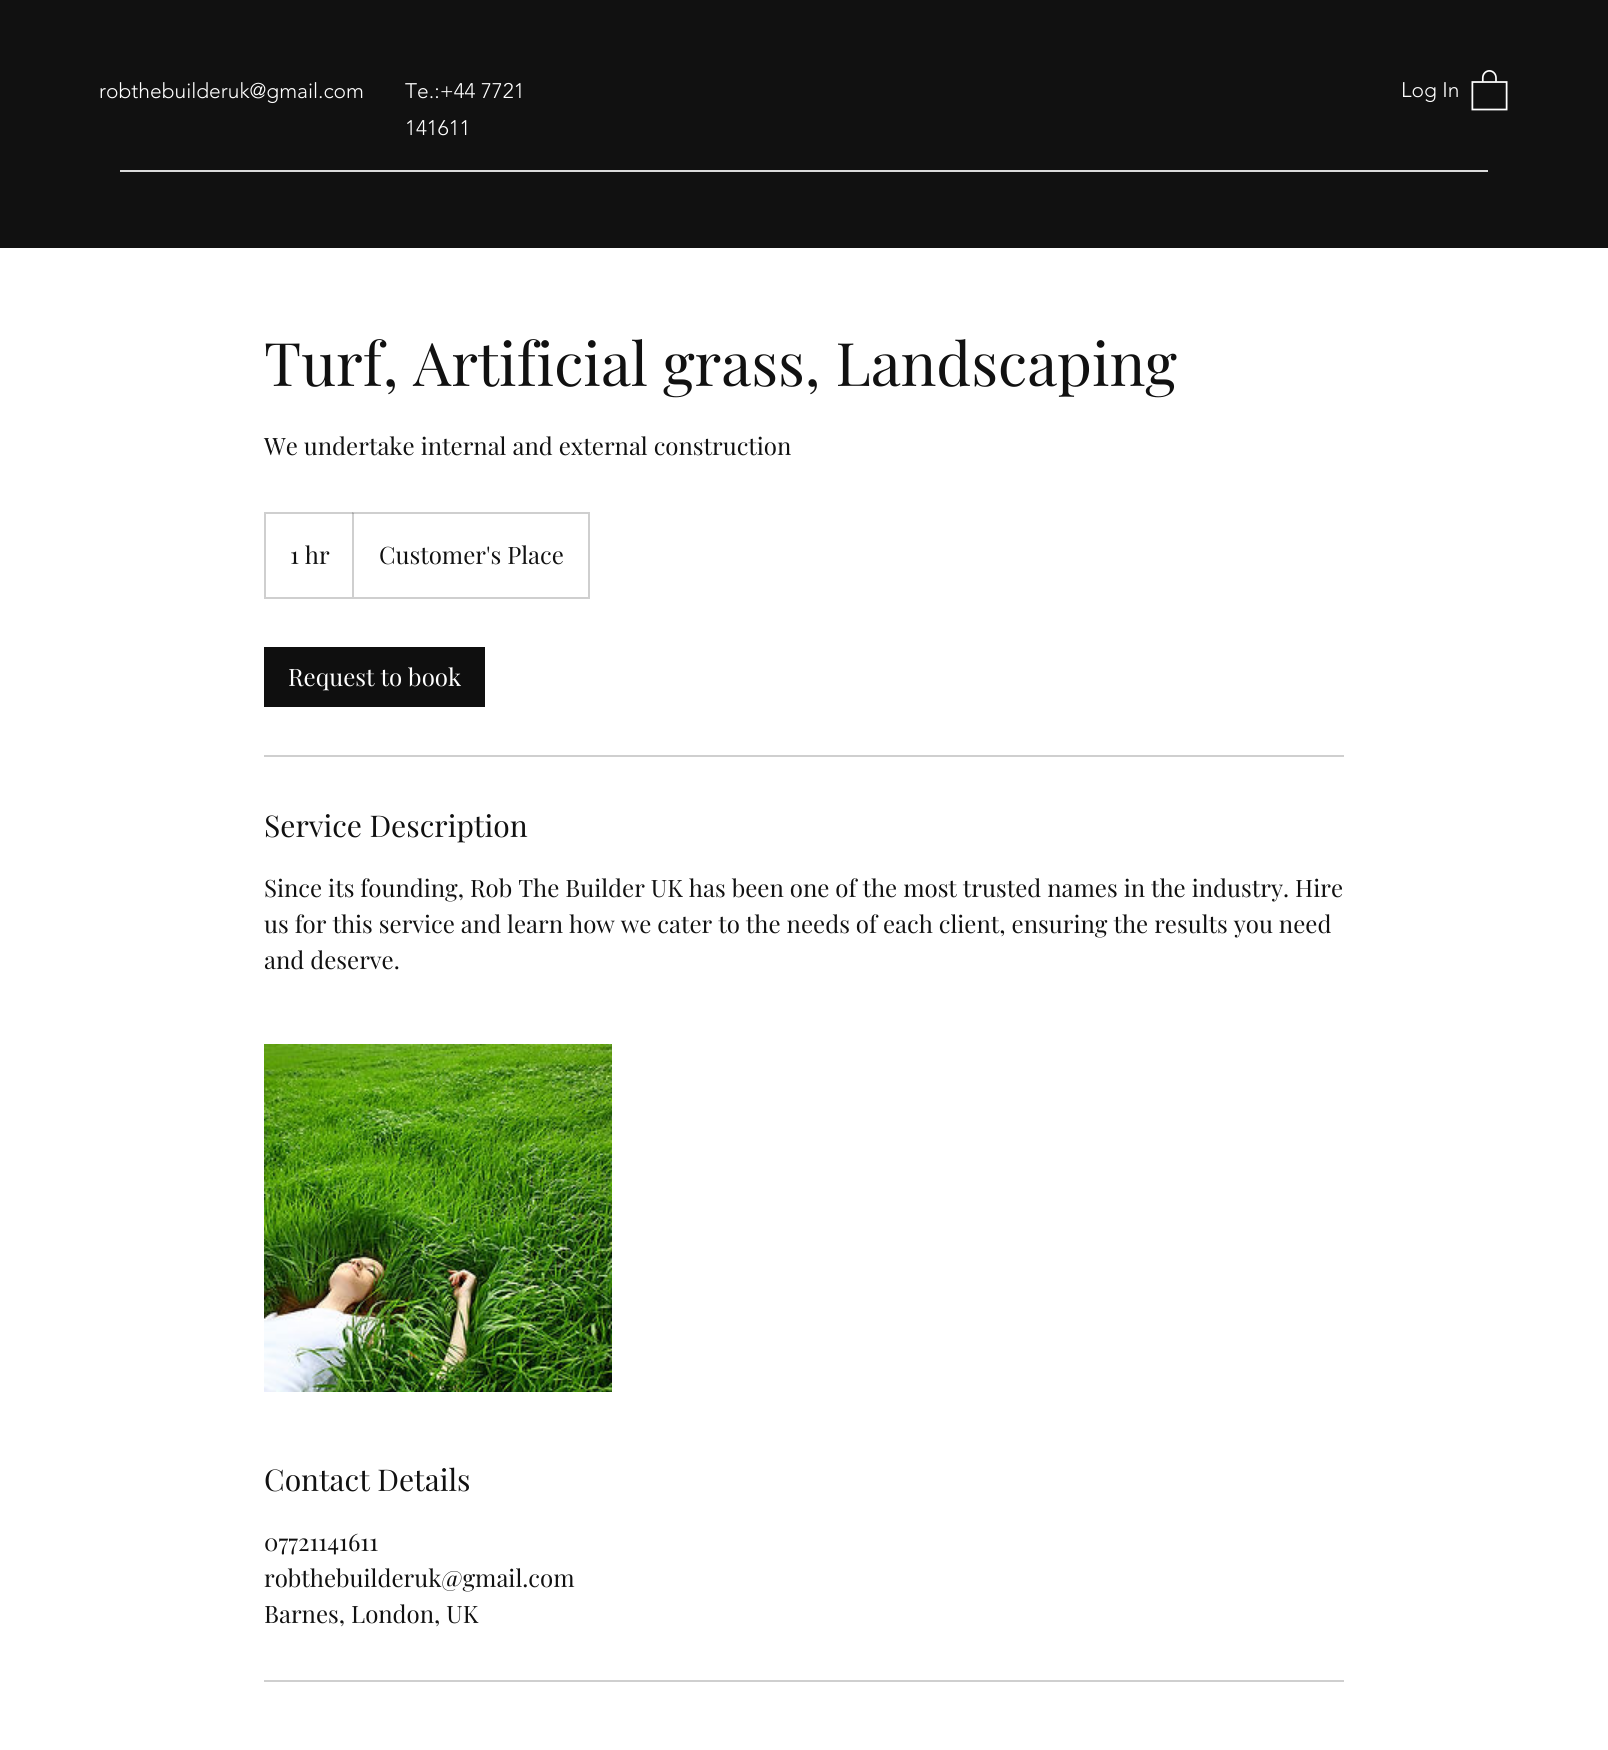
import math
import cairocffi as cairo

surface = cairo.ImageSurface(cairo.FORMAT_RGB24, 1608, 1750)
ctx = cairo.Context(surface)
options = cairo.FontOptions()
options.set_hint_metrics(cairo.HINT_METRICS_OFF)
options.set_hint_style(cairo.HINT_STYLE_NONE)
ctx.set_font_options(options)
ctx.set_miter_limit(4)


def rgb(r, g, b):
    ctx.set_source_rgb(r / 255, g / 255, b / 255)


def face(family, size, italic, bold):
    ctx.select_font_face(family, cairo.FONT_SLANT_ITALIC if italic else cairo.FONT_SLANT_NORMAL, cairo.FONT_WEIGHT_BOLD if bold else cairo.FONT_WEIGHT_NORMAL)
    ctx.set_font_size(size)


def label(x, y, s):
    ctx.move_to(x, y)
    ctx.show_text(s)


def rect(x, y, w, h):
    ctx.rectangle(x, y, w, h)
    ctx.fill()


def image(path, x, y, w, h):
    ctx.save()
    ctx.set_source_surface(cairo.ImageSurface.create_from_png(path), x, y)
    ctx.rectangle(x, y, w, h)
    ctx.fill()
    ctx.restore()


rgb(255, 255, 255)
ctx.paint()
rgb(17, 17, 17)
rect(0, 0, 1608, 248)
face('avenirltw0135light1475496 Light', 21, 0, 0)
rgb(255, 255, 255)
label(99, 98, 'robthebuilderuk@gmail.com')
label(405, 98, 'Te.:+44 7721')
label(405, 135, '141611')
label(1401, 97, 'Log In')
image('image0.png', 1471, 70, 37, 41)
rgb(219, 219, 219)
rect(120, 170, 1368, 2)
face('Playfair Display', 60, 0, 0)
rgb(17, 17, 17)
label(264, 386, 'Turf, Artificial grass, Landscaping')
face('Playfair Display', 24, 0, 0)
label(264, 455, 'We undertake internal and external construction')
ctx.rectangle(265, 513, 324, 85)
rgb(207, 207, 207)
ctx.stroke()
rgb(17, 17, 17)
label(290, 564, '1 hr')
ctx.set_source_rgba(0.067, 0.067, 0.067, 0.2)
ctx.new_path()
ctx.move_to(352, 597)
ctx.line_to(352, 512)
ctx.line_to(354, 513)
ctx.line_to(354, 597)
ctx.close_path()
ctx.fill()
rgb(17, 17, 17)
label(379, 564, 'Customer\'s Place')
rgb(15, 15, 15)
rect(264, 647, 221, 60)
rgb(255, 255, 255)
label(288, 686, 'Request to book')
rgb(207, 207, 207)
rect(264, 755, 1080, 2)
face('Playfair Display', 30, 0, 0)
rgb(17, 17, 17)
label(264, 837, 'Service Description')
face('Playfair Display', 24, 0, 0)
label(264, 897, 'Since its founding, Rob The Builder UK has been one of the most trusted names in the industry. Hire')
label(264, 933, 'us for this service and learn how we cater to the needs of each client, ensuring the results you need')
label(264, 969, 'and deserve.')
image('image1.png', 264, 1044, 348, 348)
face('Playfair Display', 30, 0, 0)
label(264, 1491, 'Contact Details')
face('Playfair Display', 24, 0, 0)
label(264, 1551, '07721141611')
label(264, 1587, 'robthebuilderuk@gmail.com')
label(264, 1623, 'Barnes, London, UK')
rgb(207, 207, 207)
rect(264, 1680, 1080, 2)
surface.write_to_png('render.png')
